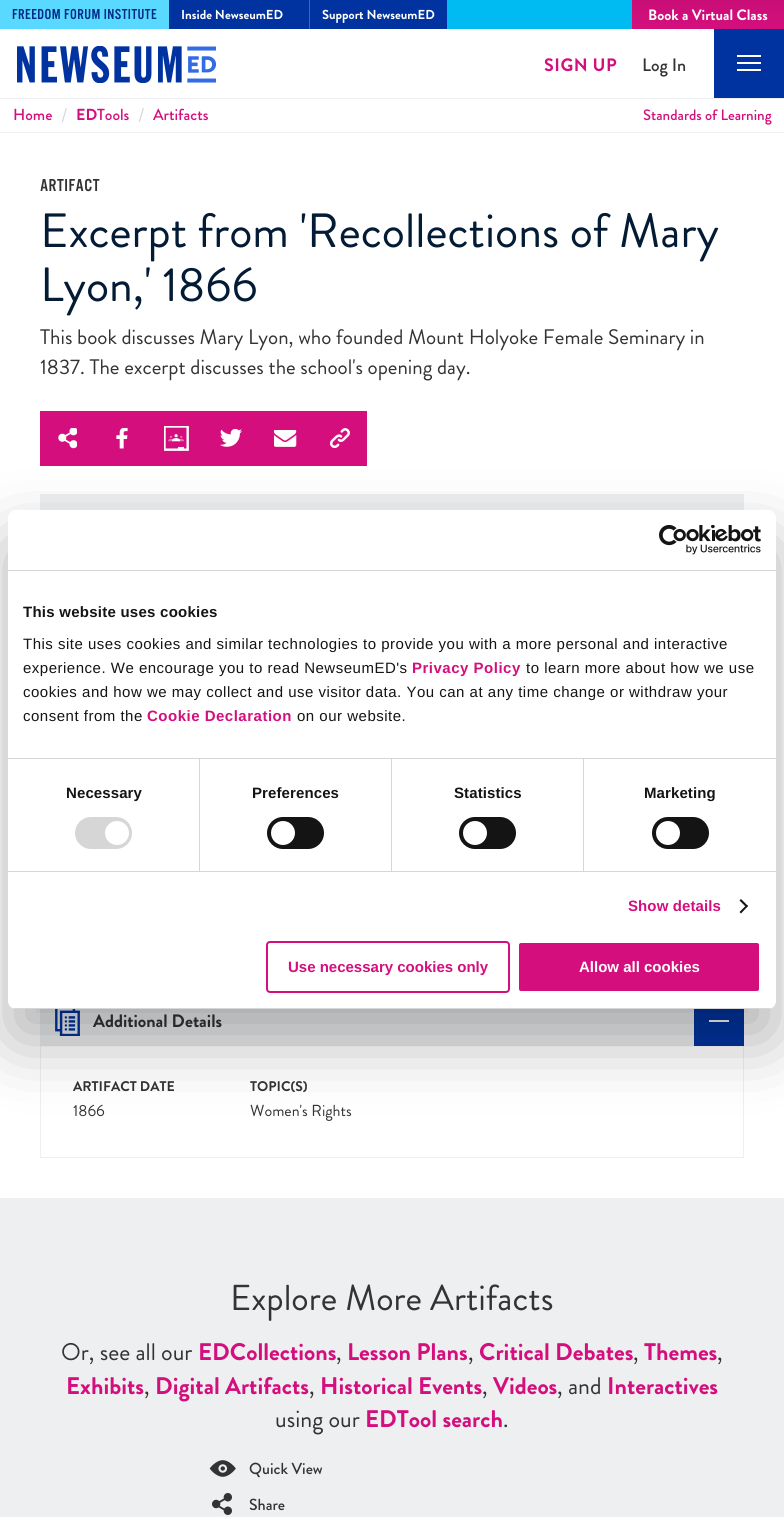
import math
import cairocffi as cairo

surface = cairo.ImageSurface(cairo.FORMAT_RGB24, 784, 1517)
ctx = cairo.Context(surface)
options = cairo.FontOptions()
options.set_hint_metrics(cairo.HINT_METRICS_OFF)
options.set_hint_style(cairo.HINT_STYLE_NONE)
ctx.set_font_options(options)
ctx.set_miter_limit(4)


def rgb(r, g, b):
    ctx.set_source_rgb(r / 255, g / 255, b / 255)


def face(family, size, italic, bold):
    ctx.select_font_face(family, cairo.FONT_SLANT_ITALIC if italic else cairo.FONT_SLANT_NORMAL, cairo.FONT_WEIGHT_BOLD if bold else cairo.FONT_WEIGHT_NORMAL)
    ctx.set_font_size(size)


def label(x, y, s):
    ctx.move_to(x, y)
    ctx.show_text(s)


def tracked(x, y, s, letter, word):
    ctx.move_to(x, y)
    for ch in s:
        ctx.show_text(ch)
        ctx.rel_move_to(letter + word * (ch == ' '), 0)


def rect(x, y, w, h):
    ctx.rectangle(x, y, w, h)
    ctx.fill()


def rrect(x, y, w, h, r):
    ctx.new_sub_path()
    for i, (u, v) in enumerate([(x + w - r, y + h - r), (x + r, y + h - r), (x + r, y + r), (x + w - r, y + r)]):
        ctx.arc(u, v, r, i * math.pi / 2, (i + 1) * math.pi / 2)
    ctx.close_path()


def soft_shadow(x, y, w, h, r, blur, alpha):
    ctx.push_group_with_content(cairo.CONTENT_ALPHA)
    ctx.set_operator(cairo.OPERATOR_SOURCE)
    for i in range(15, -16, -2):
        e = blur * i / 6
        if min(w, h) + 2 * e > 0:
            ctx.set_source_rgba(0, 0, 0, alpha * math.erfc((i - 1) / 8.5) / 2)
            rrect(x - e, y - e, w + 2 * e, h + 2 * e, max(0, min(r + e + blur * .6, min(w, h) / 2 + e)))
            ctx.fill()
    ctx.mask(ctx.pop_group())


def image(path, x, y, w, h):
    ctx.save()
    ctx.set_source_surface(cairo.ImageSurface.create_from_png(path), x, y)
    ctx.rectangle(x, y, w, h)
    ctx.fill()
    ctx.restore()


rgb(255, 255, 255)
ctx.paint()
rgb(0, 186, 242)
rect(447, 0, 185, 29)
rgb(89, 217, 255)
rect(0, 0, 169, 29)
face('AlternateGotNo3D', 15, 0, 0)
rgb(0, 43, 135)
tracked(12, 19, 'FREEDOM FORUM INSTITUTE', 0.5, 0)
rgb(65, 102, 180)
rect(309, 0, 1, 29)
rgb(0, 51, 160)
rect(169, 0, 140, 29)
face('Brandon Grotesque', 13, 0, 1)
rgb(255, 255, 255)
label(181, 19, 'Inside NewseumED')
rgb(0, 51, 160)
rect(310, 0, 137, 29)
rgb(255, 255, 255)
label(322, 19, 'Support NewseumED')
gradient = cairo.LinearGradient(708, 0, 708, 29)
gradient.add_color_stop_rgba(0, 0.788, 0.055, 0.467, 1)
gradient.add_color_stop_rgba(1, 0.831, 0.059, 0.49, 1)
ctx.set_source(gradient)
rect(632, 0, 152, 29)
face('Brandon Grotesque', 15, 0, 1)
rgb(255, 255, 255)
label(648, 20, 'Book a Virtual Class')
rgb(237, 239, 241)
rect(0, 98, 784, 1)
image('image0.png', 17, 46, 199, 37)
face('Brandon Grotesque', 18, 0, 1)
rgb(212, 15, 125)
tracked(544, 71, 'SIGN UP', 0.5, 0)
face('Brandon Grotesque Medium', 18, 0, 0)
rgb(51, 51, 51)
label(642, 71, 'Log In')
rgb(0, 51, 160)
rect(714, 29, 70, 69)
rgb(255, 255, 255)
rect(737, 55, 24, 2)
rect(737, 62, 24, 2)
rect(737, 69, 24, 2)
rgb(237, 239, 241)
rect(0, 132, 784, 1)
face('Brandon Grotesque Medium', 16, 0, 0)
rgb(212, 15, 125)
label(13, 120, 'Home')
face('Brandon Grotesque', 20, 0, 0)
rgb(211, 215, 218)
label(61, 122, '/')
face('Brandon Grotesque', 16, 0, 1)
rgb(212, 15, 125)
label(76, 120, 'ED')
face('Brandon Grotesque Medium', 16, 0, 0)
label(97, 120, 'Tools')
face('Brandon Grotesque', 20, 0, 0)
rgb(211, 215, 218)
label(138, 122, '/')
face('Brandon Grotesque Medium', 16, 0, 0)
rgb(212, 15, 125)
label(153, 120, 'Artifacts')
face('Brandon Grotesque Medium', 15, 0, 0)
label(643, 120, 'Standards of Learning')
face('AlternateGotNo3D', 18, 0, 0)
rgb(51, 51, 51)
tracked(40, 191, 'ARTIFACT', 0.5, 0)
face('Brandon Grotesque', 48, 0, 0)
rgb(4, 27, 53)
label(40, 247, 'Excerpt from \'Recollections of Mary')
label(40, 301, 'Lyon,\' 1866')
face('Brandon Grotesque', 21, 0, 0)
rgb(51, 51, 51)
label(40, 344, 'This book discusses Mary Lyon, who founded Mount Holyoke Female Seminary in')
label(40, 374, '1837. The excerpt discusses the school\'s opening day.')
rgb(212, 15, 125)
rect(40, 411, 327, 55)
image('image1.png', 58, 428, 19, 21)
image('image2.png', 116, 428, 12, 21)
image('image3.png', 164, 426, 25, 25)
image('image4.png', 220, 429, 22, 18)
image('image5.png', 274, 430, 23, 17)
image('image6.png', 330, 428, 20, 20)
rgb(237, 239, 241)
rect(40, 494, 704, 16)
rect(40, 1009, 654, 37)
image('image7.png', 55, 1009, 25, 27)
face('Brandon Grotesque', 18, 0, 1)
rgb(51, 51, 51)
label(93, 1027, 'Additional Details')
rgb(0, 51, 160)
rect(694, 1009, 50, 37)
rgb(255, 255, 255)
rect(709, 1020, 20, 2)
rgb(237, 239, 241)
rect(743, 1046, 1, 112)
rect(40, 1157, 704, 1)
rect(40, 1046, 1, 112)
face('Brandon Grotesque', 14, 0, 1)
rgb(51, 51, 51)
label(73, 1091, 'ARTIFACT DATE')
face('Brandon Grotesque', 16, 0, 0)
label(73, 1116, '1866')
face('Brandon Grotesque', 14, 0, 1)
label(250, 1091, 'TOPIC(S)')
face('Brandon Grotesque', 16, 0, 0)
label(250, 1116, 'Women\'s Rights')
rgb(237, 239, 241)
rect(0, 1198, 784, 319)
face('Brandon Grotesque', 36, 0, 0)
rgb(51, 51, 51)
label(230, 1310, 'Explore More Artifacts')
face('Brandon Grotesque', 24, 0, 0)
label(61, 1360, 'Or, see all our')
face('Brandon Grotesque', 24, 0, 1)
rgb(212, 15, 125)
label(198, 1360, 'EDCollections')
face('Brandon Grotesque', 24, 0, 0)
rgb(51, 51, 51)
label(336, 1360, ',')
face('Brandon Grotesque', 24, 0, 1)
rgb(212, 15, 125)
label(347, 1360, 'Lesson Plans')
face('Brandon Grotesque', 24, 0, 0)
rgb(51, 51, 51)
label(468, 1360, ',')
face('Brandon Grotesque', 24, 0, 1)
rgb(212, 15, 125)
label(479, 1360, 'Critical Debates')
face('Brandon Grotesque', 24, 0, 0)
rgb(51, 51, 51)
label(633, 1360, ',')
face('Brandon Grotesque', 24, 0, 1)
rgb(212, 15, 125)
label(644, 1360, 'Themes')
face('Brandon Grotesque', 24, 0, 0)
rgb(51, 51, 51)
label(717, 1360, ',')
face('Brandon Grotesque', 24, 0, 1)
rgb(212, 15, 125)
label(66, 1394, 'Exhibits')
face('Brandon Grotesque', 24, 0, 0)
rgb(51, 51, 51)
label(144, 1394, ',')
face('Brandon Grotesque', 24, 0, 1)
rgb(212, 15, 125)
label(155, 1394, 'Digital Artifacts')
face('Brandon Grotesque', 24, 0, 0)
rgb(51, 51, 51)
label(309, 1394, ',')
face('Brandon Grotesque', 24, 0, 1)
rgb(212, 15, 125)
label(320, 1394, 'Historical Events')
face('Brandon Grotesque', 24, 0, 0)
rgb(51, 51, 51)
label(482, 1394, ',')
face('Brandon Grotesque', 24, 0, 1)
rgb(212, 15, 125)
label(493, 1394, 'Videos')
face('Brandon Grotesque', 24, 0, 0)
rgb(51, 51, 51)
label(557, 1394, ', and')
face('Brandon Grotesque', 24, 0, 1)
rgb(212, 15, 125)
label(607, 1394, 'Interactives')
face('Brandon Grotesque', 24, 0, 0)
rgb(51, 51, 51)
label(275, 1427, 'using our')
face('Brandon Grotesque', 24, 0, 1)
rgb(212, 15, 125)
label(365, 1427, 'EDTool search')
face('Brandon Grotesque', 24, 0, 0)
rgb(51, 51, 51)
label(503, 1427, '.')
image('image8.png', 209, 1460, 27, 17)
face('Brandon Grotesque Medium', 16, 0, 0)
label(249, 1474, 'Quick View')
image('image9.png', 212, 1493, 20, 22)
label(249, 1510, 'Share')
rgb(0, 0, 0)
soft_shadow(8, 542, 768, 499, 8, 34, 0.3)
rgb(255, 255, 255)
rrect(8, 510, 768, 499, 8)
ctx.fill()
rgb(214, 214, 214)
rect(8, 570, 768, 1)
image('image10.png', 659, 525, 102, 30)
rect(8, 758, 768, 1)
face('Liberation Sans', 15, 0, 1)
rgb(20, 20, 20)
tracked(23, 617, 'This website uses cookies', 0.25, 0)
face('Liberation Sans', 15, 0, 0)
tracked(23, 649, 'This site uses cookies and similar technologies to provide you with a more personal and interactive', 0.5, 0)
tracked(23, 673, 'experience. We encourage you to read NewseumED\'s', 0.5, 0)
face('Liberation Sans', 15, 0, 1)
rgb(212, 15, 125)
tracked(412, 673, 'Privacy Policy', 0.5, 0)
face('Liberation Sans', 15, 0, 0)
rgb(20, 20, 20)
tracked(526, 673, 'to learn more about how we use', 0.5, 0)
tracked(23, 697, 'cookies and how we may collect and use visitor data. You can at any time change or withdraw your', 0.5, 0)
tracked(23, 721, 'consent from the', 0.5, 0)
face('Liberation Sans', 15, 0, 1)
rgb(212, 15, 125)
tracked(147, 721, 'Cookie Declaration', 0.5, 0)
face('Liberation Sans', 15, 0, 0)
rgb(20, 20, 20)
tracked(297, 721, 'on our website.', 0.5, 0)
rgb(214, 214, 214)
rect(8, 871, 768, 1)
rect(199, 759, 1, 112)
face('Liberation Sans', 15, 0, 1)
rgb(20, 20, 20)
tracked(66, 798, 'Necessary', 0.1, 0)
rgb(214, 214, 214)
rrect(75, 817, 57, 32, 16)
ctx.fill()
rgb(255, 255, 255)
ctx.arc(117, 833, 12, 0, 2 * math.pi)
ctx.fill()
rgb(214, 214, 214)
rect(391, 759, 1, 112)
rgb(20, 20, 20)
tracked(252, 798, 'Preferences', 0.1, 0)
rrect(267, 817, 57, 32, 16)
ctx.fill()
rgb(255, 255, 255)
ctx.arc(283, 833, 12, 0, 2 * math.pi)
ctx.fill()
rgb(214, 214, 214)
rect(583, 759, 1, 112)
rgb(20, 20, 20)
tracked(454, 798, 'Statistics', 0.1, 0)
rrect(459, 817, 57, 32, 16)
ctx.fill()
rgb(255, 255, 255)
ctx.arc(475, 833, 12, 0, 2 * math.pi)
ctx.fill()
rgb(20, 20, 20)
tracked(644, 798, 'Marketing', 0.1, 0)
rrect(652, 817, 57, 32, 16)
ctx.fill()
rgb(255, 255, 255)
ctx.arc(668, 833, 12, 0, 2 * math.pi)
ctx.fill()
rgb(212, 15, 125)
tracked(628, 911, 'Show details', 0.1, 0)
rgb(20, 20, 20)
ctx.new_path()
ctx.move_to(741, 899)
ctx.line_to(748, 906)
ctx.line_to(746.5, 907.5)
ctx.line_to(739.5, 900.5)
ctx.close_path()
ctx.fill()
ctx.new_path()
ctx.move_to(746.5, 905)
ctx.line_to(748, 906)
ctx.line_to(741, 913.5)
ctx.line_to(739.5, 912)
ctx.close_path()
ctx.fill()
ctx.save()
rrect(8, 510, 768, 499, 8)
ctx.clip()
rgb(214, 214, 214)
rect(8, 1008, 768, 1)
ctx.restore()
rrect(267, 942, 242, 50, 3)
rgb(212, 15, 125)
ctx.stroke()
label(288, 972, 'Use necessary cookies only')
rrect(518, 942, 242, 50, 3)
ctx.fill_preserve()
rgb(255, 255, 255)
ctx.stroke()
label(579, 972, 'Allow all cookies')
surface.write_to_png('render.png')
